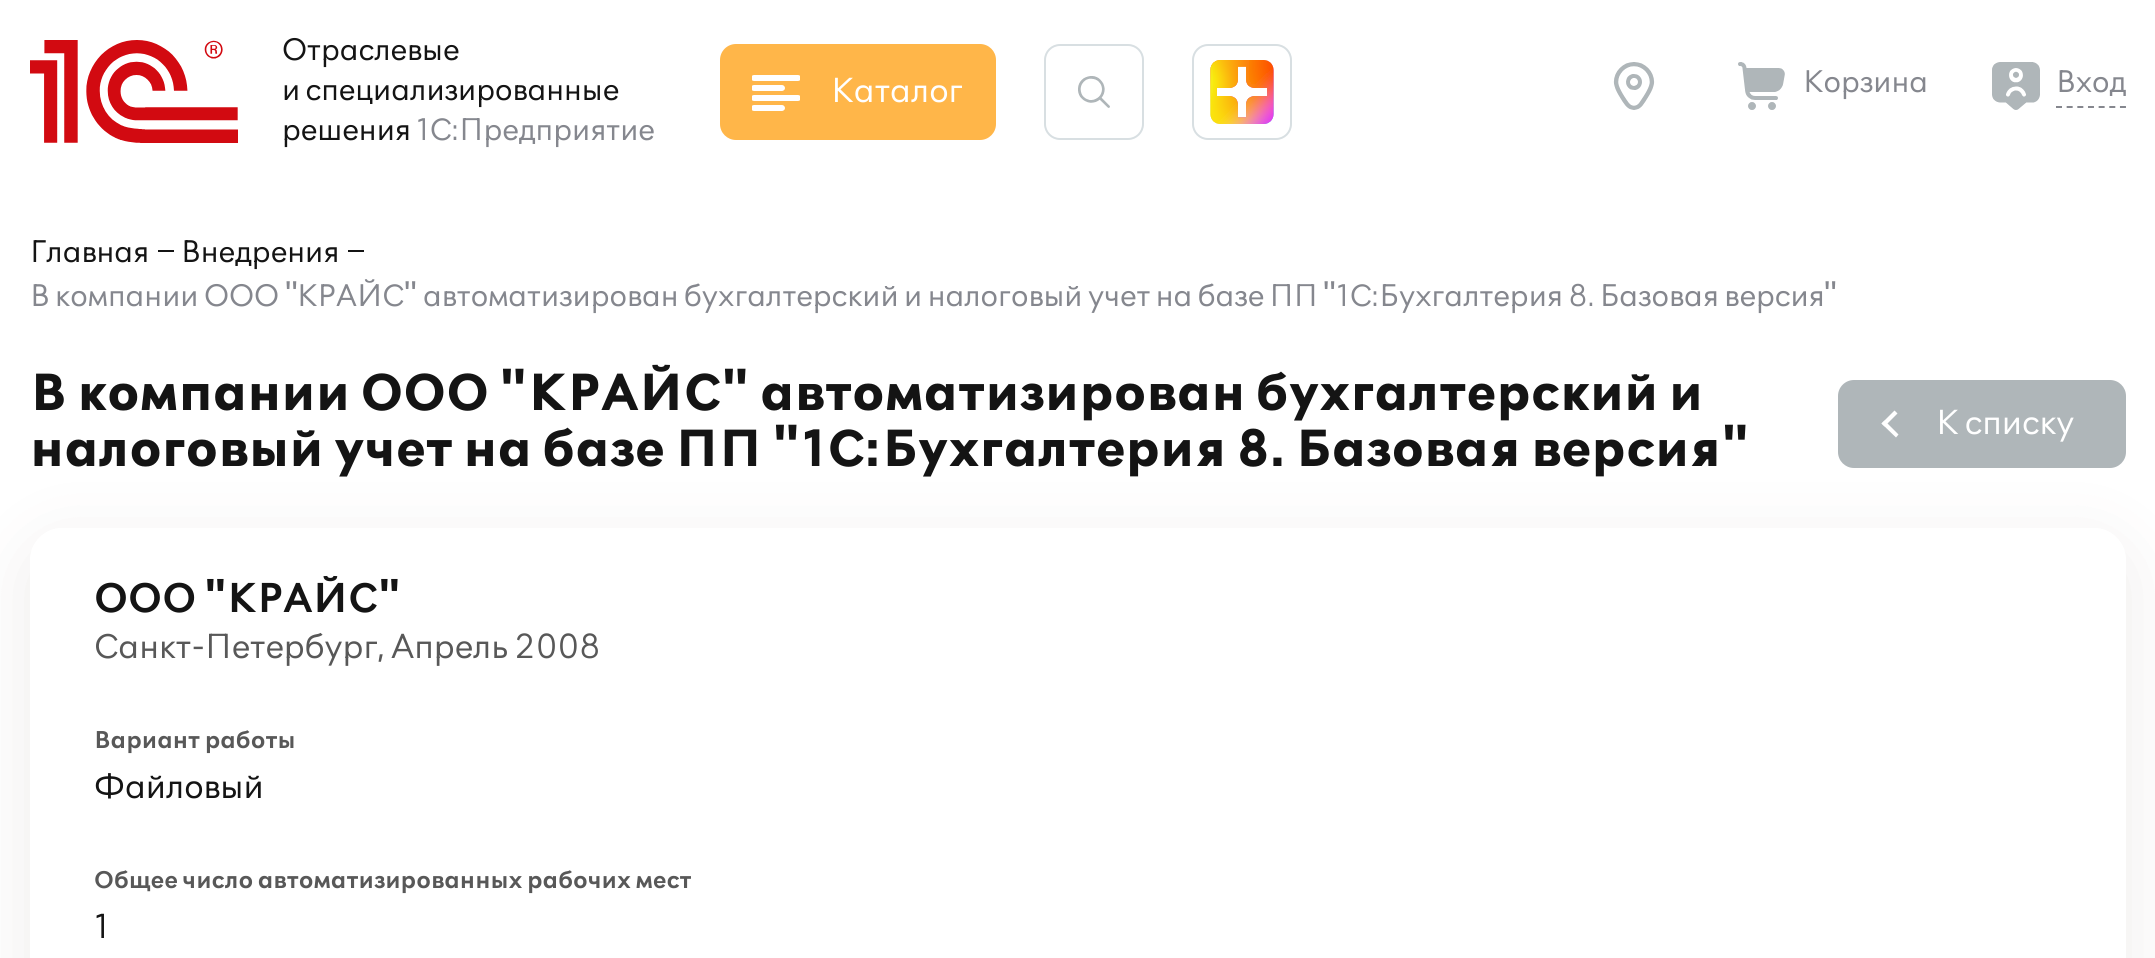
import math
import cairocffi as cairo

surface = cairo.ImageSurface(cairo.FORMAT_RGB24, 2155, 958)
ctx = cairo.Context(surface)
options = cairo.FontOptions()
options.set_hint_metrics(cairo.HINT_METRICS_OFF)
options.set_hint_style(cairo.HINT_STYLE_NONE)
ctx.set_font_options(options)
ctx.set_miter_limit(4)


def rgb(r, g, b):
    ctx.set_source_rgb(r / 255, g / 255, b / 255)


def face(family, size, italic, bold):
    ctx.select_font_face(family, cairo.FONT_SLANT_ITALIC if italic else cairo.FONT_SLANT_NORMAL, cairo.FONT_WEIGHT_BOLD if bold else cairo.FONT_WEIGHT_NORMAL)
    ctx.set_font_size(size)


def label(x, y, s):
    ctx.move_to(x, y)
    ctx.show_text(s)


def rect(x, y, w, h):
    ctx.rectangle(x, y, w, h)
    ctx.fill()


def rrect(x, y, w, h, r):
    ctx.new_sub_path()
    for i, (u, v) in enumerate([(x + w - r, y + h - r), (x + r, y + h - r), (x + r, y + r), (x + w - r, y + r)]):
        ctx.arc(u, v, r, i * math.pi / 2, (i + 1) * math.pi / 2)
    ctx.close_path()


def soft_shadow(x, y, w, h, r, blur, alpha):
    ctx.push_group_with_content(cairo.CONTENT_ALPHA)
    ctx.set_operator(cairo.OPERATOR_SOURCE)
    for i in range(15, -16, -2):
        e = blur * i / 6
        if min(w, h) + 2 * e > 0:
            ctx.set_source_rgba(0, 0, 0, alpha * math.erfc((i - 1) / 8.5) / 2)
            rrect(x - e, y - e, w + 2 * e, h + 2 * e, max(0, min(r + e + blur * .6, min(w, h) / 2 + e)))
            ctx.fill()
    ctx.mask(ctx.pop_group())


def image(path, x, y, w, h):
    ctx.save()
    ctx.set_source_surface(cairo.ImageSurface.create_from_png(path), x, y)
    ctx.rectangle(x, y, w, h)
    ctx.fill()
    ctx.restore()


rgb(255, 255, 255)
ctx.paint()
image('image0.png', 30, 40, 208, 103)
face('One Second', 36, 0, 0)
rgb(20, 20, 20)
label(282, 60, 'Отраслевые')
label(282, 100, 'и специализированные')
label(282, 140, 'решения')
rgb(133, 135, 142)
label(416, 140, '1С:Предприятие')
rgb(255, 182, 73)
rrect(720, 44, 276, 96, 16)
ctx.fill()
image('image1.png', 752, 75, 48, 36)
face('One Second', 40, 0, 0)
rgb(255, 255, 255)
label(831, 102, 'Каталог')
rrect(1045, 45, 98, 94, 15)
rgb(216, 223, 226)
ctx.stroke()
image('image2.png', 1078, 76, 32, 32)
rrect(1193, 45, 98, 94, 15)
ctx.stroke()
image('image3.png', 1210, 60, 64, 64)
image('image4.png', 1210, 60, 64, 64)
image('image5.png', 1613, 62, 42, 48)
image('image6.png', 1738, 62, 47, 48)
face('One Second', 36, 0, 0)
rgb(133, 135, 142)
label(1803, 92, 'Корзина')
image('image7.png', 1992, 62, 48, 48)
ctx.new_path()
ctx.move_to(2056, 107)
ctx.line_to(2126, 107)
ctx.set_dash([6, 4.66])
ctx.stroke()
label(2056, 92, 'Вход')
rgb(20, 20, 20)
label(30, 262, 'Главная')
rect(158, 250, 16, 2)
label(181, 262, 'Внедрения')
rect(348, 250, 16, 2)
rgb(133, 135, 142)
label(30, 306, 'В компании ООО')
face('Liberation Sans', 36, 0, 0)
label(285, 306, '"')
face('One Second', 36, 0, 0)
label(297, 306, 'КРАЙС')
face('Liberation Sans', 36, 0, 0)
label(404, 306, '"')
face('One Second', 36, 0, 0)
label(423, 306, 'автоматизирован бухгалтерский и налоговый учет на базе ПП')
face('Liberation Sans', 36, 0, 0)
label(1323, 306, '"')
face('One Second', 36, 0, 0)
label(1336, 306, '1С:Бухгалтерия 8. Базовая версия')
face('Liberation Sans', 36, 0, 0)
label(1824, 306, '"')
face('One Second', 60, 0, 1)
rgb(20, 20, 20)
label(30, 410, 'В компании ООО')
face('Liberation Sans', 60, 0, 1)
label(499, 410, '"')
face('One Second', 60, 0, 1)
label(528, 410, 'КРАЙС')
face('Liberation Sans', 60, 0, 1)
label(721, 410, '"')
face('One Second', 60, 0, 1)
label(760, 410, 'автоматизирован бухгалтерский и')
label(30, 466, 'налоговый учет на базе ПП')
face('Liberation Sans', 60, 0, 1)
label(772, 466, '"')
face('One Second', 60, 0, 1)
label(801, 466, '1С:Бухгалтерия 8. Базовая версия')
face('Liberation Sans', 60, 0, 1)
label(1721, 466, '"')
ctx.save()
ctx.set_fill_rule(cairo.FILL_RULE_EVEN_ODD)
ctx.new_path()
ctx.move_to(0, 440)
ctx.line_to(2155, 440)
ctx.line_to(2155, 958)
ctx.line_to(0, 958)
ctx.close_path()
ctx.move_to(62, 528)
ctx.line_to(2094, 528)
ctx.curve_to(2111.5, 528, 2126, 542.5, 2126, 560)
ctx.line_to(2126, 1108)
ctx.curve_to(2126, 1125.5, 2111.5, 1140, 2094, 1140)
ctx.line_to(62, 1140)
ctx.curve_to(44.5, 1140, 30, 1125.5, 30, 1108)
ctx.line_to(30, 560)
ctx.curve_to(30, 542.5, 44.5, 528, 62, 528)
ctx.close_path()
ctx.clip()
rgb(85, 62, 45)
soft_shadow(30, 546, 2096, 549, 32, 35, 0.1)
ctx.restore()
rgb(175, 182, 185)
rrect(1838, 380, 288, 88, 16)
ctx.fill()
rgb(255, 255, 255)
ctx.new_path()
ctx.move_to(1881.5, 423.5)
ctx.line_to(1894.5, 410.5)
ctx.line_to(1897.5, 413.5)
ctx.line_to(1884.5, 426.5)
ctx.close_path()
ctx.fill()
ctx.new_path()
ctx.move_to(1881.5, 423.5)
ctx.line_to(1884.5, 420.5)
ctx.line_to(1898.5, 434.5)
ctx.line_to(1896, 437.5)
ctx.close_path()
ctx.fill()
face('One Second', 40, 0, 0)
label(1936, 434, 'К списку')
face('One Second SemiBold', 48, 0, 0)
rgb(20, 20, 20)
label(94, 612, 'ООО')
face('Liberation Sans', 48, 0, 1)
label(204, 612, '"')
face('One Second SemiBold', 48, 0, 0)
label(227, 612, 'КРАЙС')
face('Liberation Sans', 48, 0, 1)
label(378, 612, '"')
face('One Second', 40, 0, 0)
rgb(88, 88, 88)
label(94, 658, 'Санкт-Петербург, Апрель 2008')
face('One Second SemiBold', 28, 0, 0)
label(94, 748, 'Вариант работы')
face('One Second', 40, 0, 0)
rgb(20, 20, 20)
label(94, 798, 'Файловый')
face('One Second SemiBold', 28, 0, 0)
rgb(88, 88, 88)
label(94, 888, 'Общее число автоматизированных рабочих мест')
face('One Second', 40, 0, 0)
rgb(20, 20, 20)
label(94, 938, '1')
surface.write_to_png('render.png')
